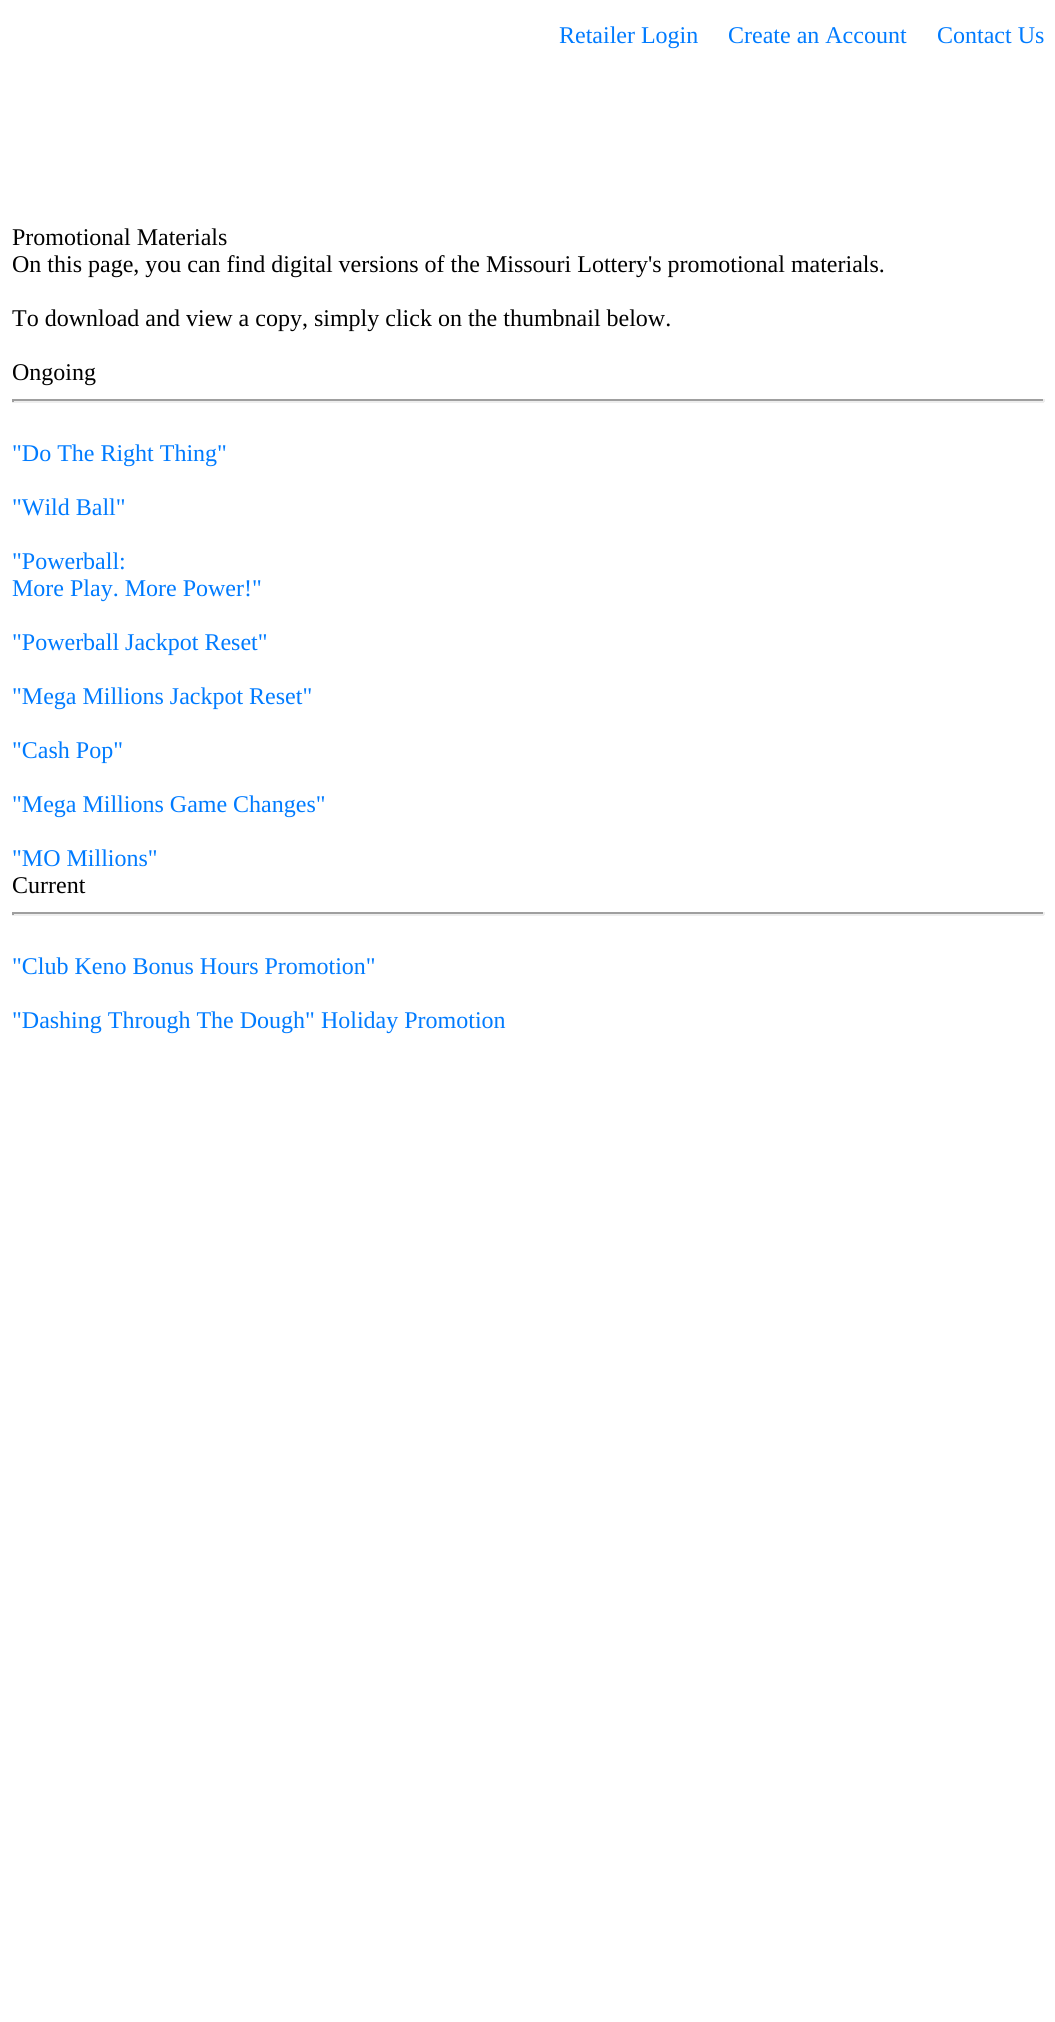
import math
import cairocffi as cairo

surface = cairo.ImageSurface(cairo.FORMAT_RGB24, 1055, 2022)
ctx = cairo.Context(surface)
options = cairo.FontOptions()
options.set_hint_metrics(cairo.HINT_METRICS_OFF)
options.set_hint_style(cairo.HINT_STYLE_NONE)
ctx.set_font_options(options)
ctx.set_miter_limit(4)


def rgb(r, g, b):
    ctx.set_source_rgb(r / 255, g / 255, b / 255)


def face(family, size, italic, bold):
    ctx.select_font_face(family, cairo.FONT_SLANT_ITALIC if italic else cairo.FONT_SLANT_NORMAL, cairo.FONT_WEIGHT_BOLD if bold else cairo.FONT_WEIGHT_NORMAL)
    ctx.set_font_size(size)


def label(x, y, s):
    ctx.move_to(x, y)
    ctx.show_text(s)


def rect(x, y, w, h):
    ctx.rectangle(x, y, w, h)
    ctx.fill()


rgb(255, 255, 255)
ctx.paint()
face('Liberation Serif', 24, 0, 0)
rgb(0, 123, 255)
label(559, 43, 'Retailer Login')
label(728, 43, 'Create an Account')
label(937, 43, 'Contact Us')
rgb(0, 0, 0)
label(12, 245, 'Promotional Materials')
label(12, 272, 'On this page, you can find digital versions of the Missouri Lottery\'s promotional materials.')
label(12, 326, 'To download and view a copy, simply click on the thumbnail below.')
label(12, 380, 'Ongoing')
rgb(159, 159, 159)
rect(12, 399, 1032, 2)
rgb(238, 238, 238)
rect(1043, 399, 2, 3)
rect(12, 401, 1032, 2)
rgb(159, 159, 159)
rect(12, 399, 2, 3)
rgb(0, 123, 255)
label(12, 461, '"Do The Right Thing"')
label(12, 515, '"Wild Ball"')
label(12, 569, '"Powerball:')
label(12, 596, 'More Play. More Power!"')
label(12, 650, '"Powerball Jackpot Reset"')
label(12, 704, '"Mega Millions Jackpot Reset"')
label(12, 758, '"Cash Pop"')
label(12, 812, '"Mega Millions Game Changes"')
label(12, 866, '"MO Millions"')
rgb(0, 0, 0)
label(12, 893, 'Current')
rgb(159, 159, 159)
rect(12, 912, 1032, 2)
rgb(238, 238, 238)
rect(1043, 912, 2, 3)
rect(12, 914, 1032, 2)
rgb(159, 159, 159)
rect(12, 912, 2, 3)
rgb(0, 123, 255)
label(12, 974, '"Club Keno Bonus Hours Promotion"')
label(12, 1028, '"Dashing Through The Dough" Holiday Promotion')
surface.write_to_png('render.png')
